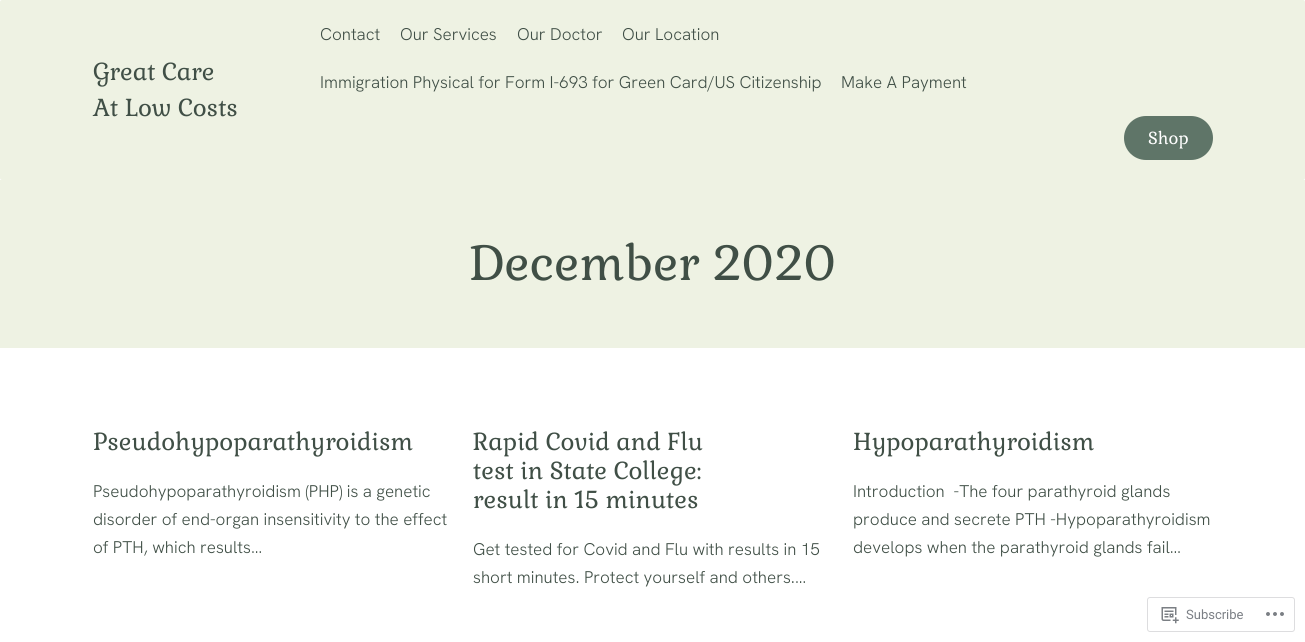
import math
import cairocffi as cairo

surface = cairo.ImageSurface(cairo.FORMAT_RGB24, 1305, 642)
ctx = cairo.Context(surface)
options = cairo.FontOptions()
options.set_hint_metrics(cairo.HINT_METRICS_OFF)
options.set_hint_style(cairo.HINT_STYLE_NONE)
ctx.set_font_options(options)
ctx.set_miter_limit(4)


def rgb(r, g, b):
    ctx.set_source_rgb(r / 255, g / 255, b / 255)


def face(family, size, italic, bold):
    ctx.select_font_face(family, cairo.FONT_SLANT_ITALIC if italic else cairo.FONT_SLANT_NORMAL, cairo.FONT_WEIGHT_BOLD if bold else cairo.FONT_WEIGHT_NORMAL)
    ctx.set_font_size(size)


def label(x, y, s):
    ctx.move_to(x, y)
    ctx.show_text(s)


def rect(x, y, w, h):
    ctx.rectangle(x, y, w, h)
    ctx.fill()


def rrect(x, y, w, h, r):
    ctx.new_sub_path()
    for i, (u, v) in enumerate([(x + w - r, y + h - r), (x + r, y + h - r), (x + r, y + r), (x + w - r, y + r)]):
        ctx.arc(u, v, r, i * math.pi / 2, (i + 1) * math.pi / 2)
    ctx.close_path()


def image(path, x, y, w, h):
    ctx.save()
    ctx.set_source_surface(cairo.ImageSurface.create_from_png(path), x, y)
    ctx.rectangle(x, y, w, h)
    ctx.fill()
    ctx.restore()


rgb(255, 255, 255)
ctx.paint()
rgb(238, 242, 227)
rrect(0, 0, 1305, 180, 2)
ctx.fill()
face('Gabriela', 24, 0, 0)
rgb(64, 79, 70)
label(93, 80, 'Great Care')
label(93, 116, 'At Low Costs')
face('Hanken Grotesk Light', 17, 0, 0)
label(320, 40, 'Contact')
label(400, 40, 'Our Services')
label(517, 40, 'Our Doctor')
label(622, 40, 'Our Location')
label(320, 88, 'Immigration Physical for Form I-693 for Green Card/US Citizenship')
label(841, 88, 'Make A Payment')
rgb(95, 117, 104)
rrect(1124, 116, 89, 44, 22)
ctx.fill()
face('Gabriela', 17, 0, 0)
rgb(255, 255, 255)
label(1148, 144, 'Shop')
rgb(238, 242, 227)
rect(0, 180, 1305, 168)
face('Gabriela', 48, 0, 0)
rgb(64, 79, 70)
label(469, 280, 'December 2020')
face('Gabriela', 24, 0, 0)
label(93, 450, 'Pseudohypoparathyroidism')
face('Hanken Grotesk Light', 17, 0, 0)
label(93, 497, 'Pseudohypoparathyroidism (PHP) is a genetic')
label(93, 525, 'disorder of end-organ insensitivity to the effect')
label(93, 553, 'of PTH, which results…')
face('Gabriela', 24, 0, 0)
label(473, 450, 'Rapid Covid and Flu')
label(473, 479, 'test in State College:')
label(473, 508, 'result in 15 minutes')
face('Hanken Grotesk Light', 17, 0, 0)
label(473, 555, 'Get tested for Covid and Flu with results in 15')
label(473, 583, 'short minutes. Protect yourself and others.…')
face('Gabriela', 24, 0, 0)
label(853, 450, 'Hypoparathyroidism')
face('Hanken Grotesk Light', 17, 0, 0)
label(853, 497, 'Introduction  -The four parathyroid glands')
label(853, 525, 'produce and secrete PTH -Hypoparathyroidism')
label(853, 553, 'develops when the parathyroid glands fail…')
rrect(1147.5, 597.5, 147, 34, 2.5)
rgb(221, 221, 223)
ctx.set_line_width(1)
ctx.stroke()
image('image0.png', 1161, 607, 18, 17)
face('Roboto', 13, 0, 0)
rgb(123, 127, 133)
label(1186, 619, 'Subscribe')
image('image1.png', 1266, 612, 18, 4)
surface.write_to_png('render.png')
